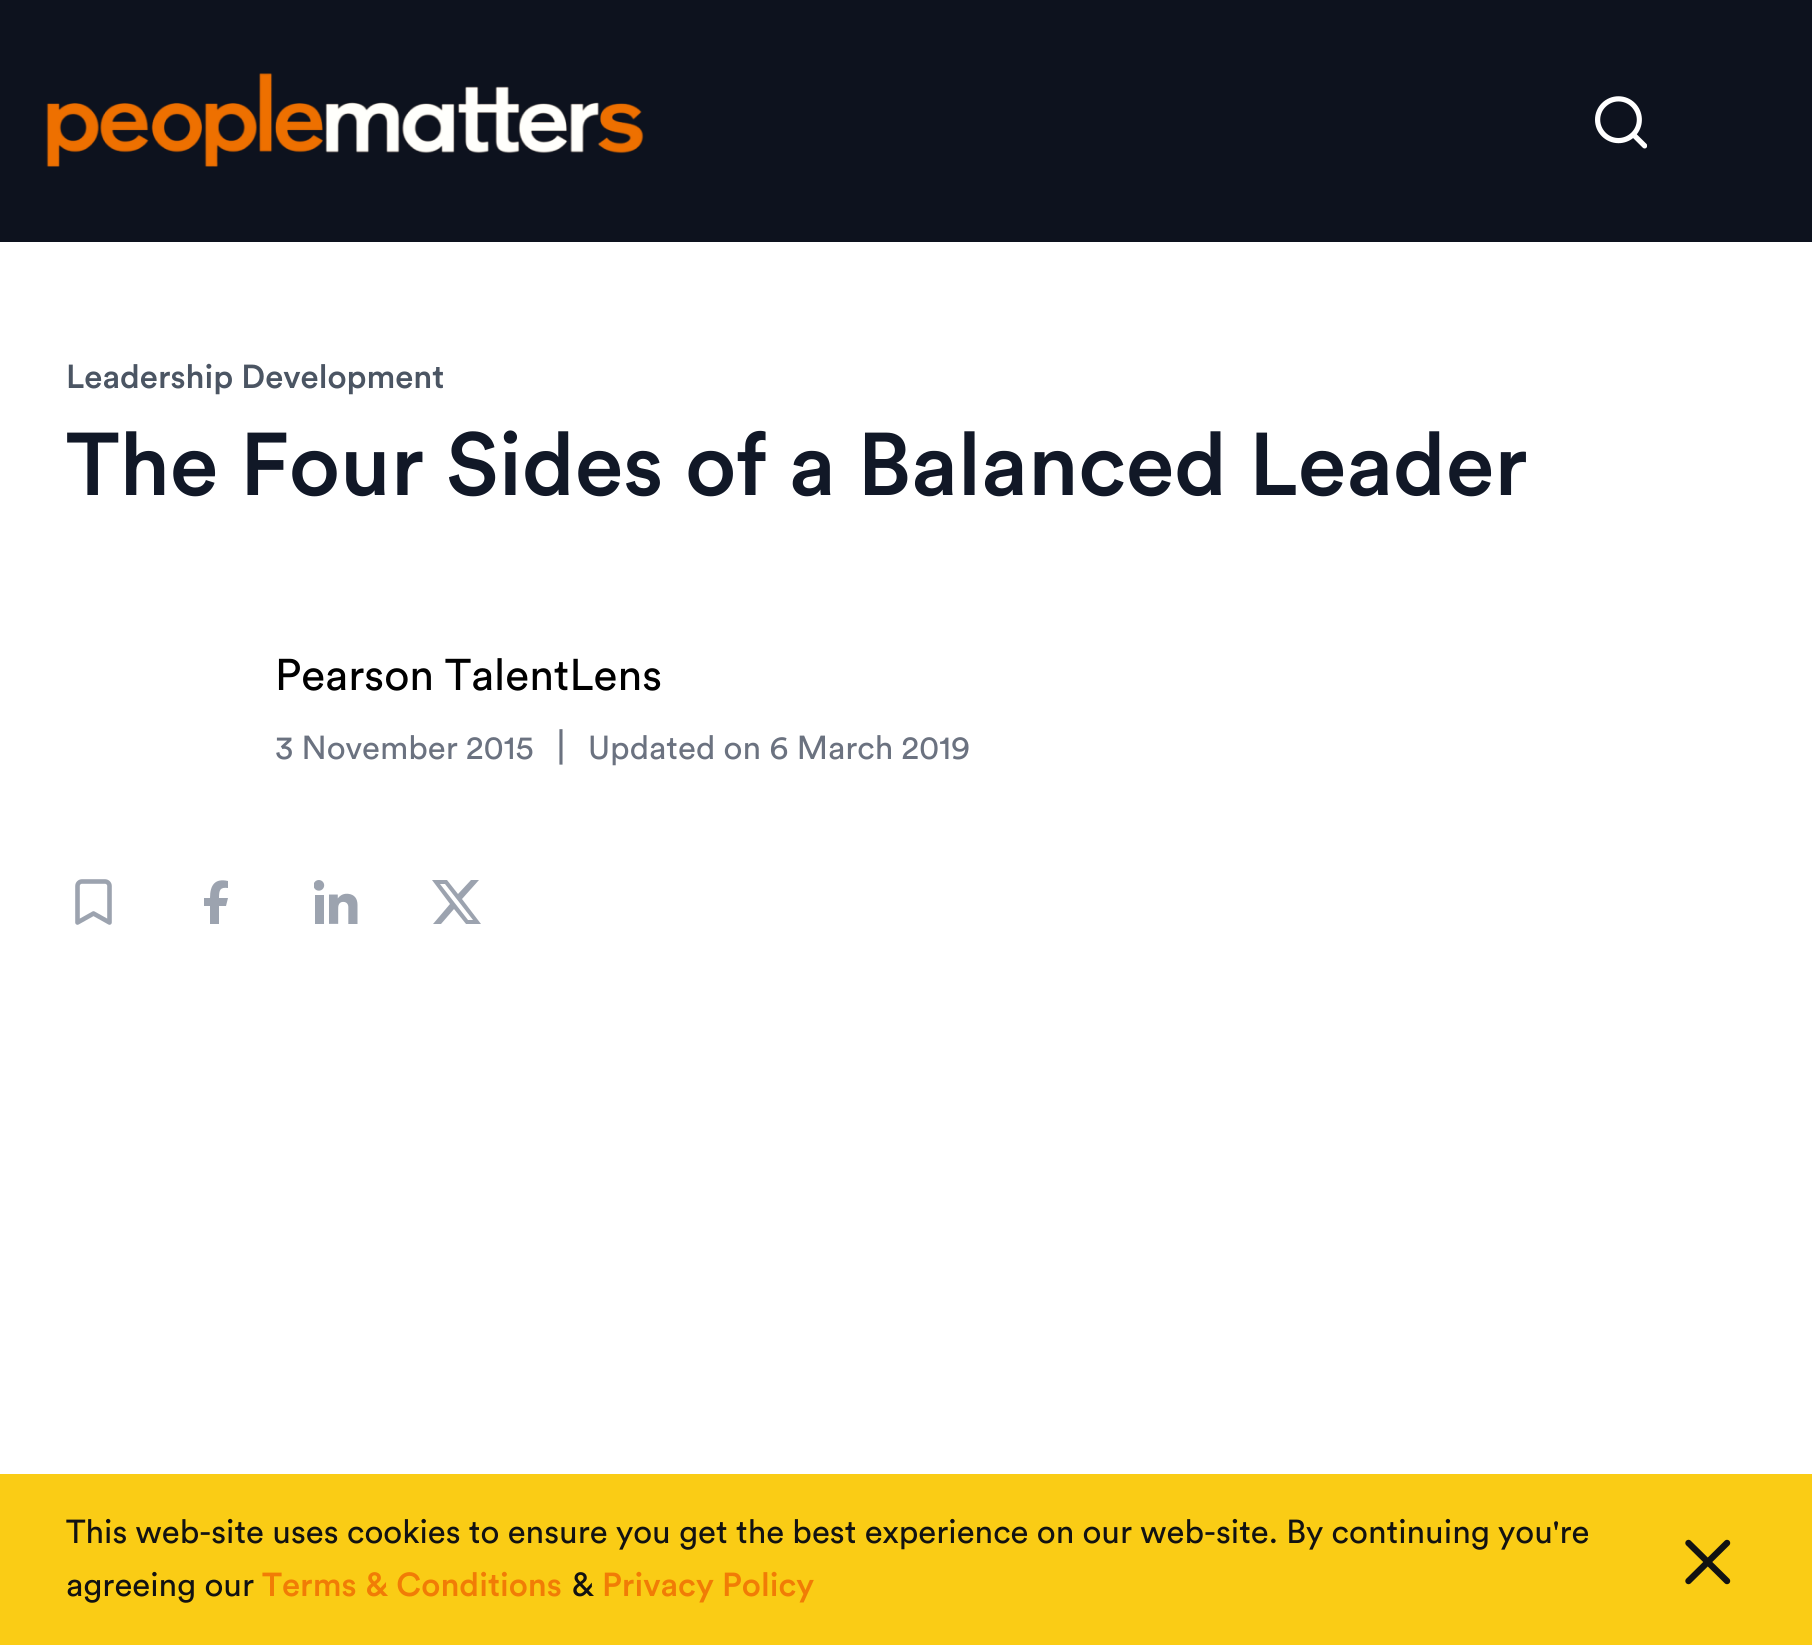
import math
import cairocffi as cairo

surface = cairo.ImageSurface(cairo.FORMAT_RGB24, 1812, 1645)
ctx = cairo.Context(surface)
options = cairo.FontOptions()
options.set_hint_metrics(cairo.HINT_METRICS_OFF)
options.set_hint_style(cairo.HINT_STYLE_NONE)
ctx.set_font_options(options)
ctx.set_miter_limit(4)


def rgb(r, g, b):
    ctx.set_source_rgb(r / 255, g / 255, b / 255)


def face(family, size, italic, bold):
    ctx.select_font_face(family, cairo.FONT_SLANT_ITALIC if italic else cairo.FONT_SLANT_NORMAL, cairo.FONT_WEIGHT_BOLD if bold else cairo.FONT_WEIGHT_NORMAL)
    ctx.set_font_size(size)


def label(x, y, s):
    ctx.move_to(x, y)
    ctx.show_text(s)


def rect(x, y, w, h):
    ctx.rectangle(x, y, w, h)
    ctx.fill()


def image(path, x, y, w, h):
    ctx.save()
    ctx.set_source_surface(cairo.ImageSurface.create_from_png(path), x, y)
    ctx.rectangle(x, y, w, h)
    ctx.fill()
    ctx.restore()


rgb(255, 255, 255)
ctx.paint()
rgb(13, 18, 30)
rect(0, 0, 1812, 242)
image('image0.png', 46, 73, 598, 94)
image('image1.png', 1595, 96, 52, 53)
face('Circular Medium', 33, 0, 0)
rgb(75, 85, 99)
label(66, 388, 'Leadership Development')
face('Circular Medium', 88, 0, 0)
rgb(17, 24, 39)
label(66, 495, 'The Four Sides of a Balanced Leader')
face('Circular', 44, 0, 0)
rgb(0, 0, 0)
label(275, 690, 'Pearson TalentLens')
face('Circular', 33, 0, 0)
rgb(107, 114, 128)
label(275, 759, '3 November 2015')
face('Circular', 38, 0, 0)
label(556, 759, '|')
face('Circular', 33, 0, 0)
label(588, 759, 'Updated on 6 March 2019')
ctx.new_path()
ctx.move_to(109.5, 922.5)
ctx.line_to(93.5, 913.5)
ctx.line_to(77.5, 922.5)
ctx.line_to(77.5, 886)
ctx.curve_to(77.5, 883.5, 79.5, 881.5, 82, 881.5)
ctx.line_to(105, 881.5)
ctx.curve_to(107.5, 881.5, 109.5, 883.5, 109.5, 886)
ctx.close_path()
rgb(156, 163, 175)
ctx.set_line_width(4.6)
ctx.set_line_cap(cairo.LINE_CAP_ROUND)
ctx.set_line_join(cairo.LINE_JOIN_ROUND)
ctx.stroke()
ctx.new_path()
ctx.move_to(219, 906)
ctx.line_to(219, 924)
ctx.line_to(210, 924)
ctx.line_to(210, 906)
ctx.line_to(204, 906)
ctx.line_to(204, 898)
ctx.line_to(210, 898)
ctx.curve_to(210, 885, 215, 878, 228, 881)
ctx.line_to(228, 888)
ctx.curve_to(220, 887, 219, 890, 219, 898)
ctx.line_to(228, 898)
ctx.line_to(226, 906)
ctx.close_path()
ctx.fill()
image('image2.png', 314, 880, 44, 44)
ctx.set_fill_rule(cairo.FILL_RULE_EVEN_ODD)
ctx.new_path()
ctx.move_to(447, 880)
ctx.line_to(432, 880)
ctx.line_to(450, 904)
ctx.line_to(433, 924)
ctx.line_to(441, 924)
ctx.line_to(454, 909)
ctx.line_to(466, 924)
ctx.line_to(481, 924)
ctx.line_to(462, 899)
ctx.line_to(479, 880)
ctx.line_to(471, 880)
ctx.line_to(458, 894)
ctx.close_path()
ctx.move_to(440, 884)
ctx.line_to(445, 884)
ctx.line_to(473, 920)
ctx.line_to(468, 920)
ctx.close_path()
ctx.fill()
rgb(250, 204, 21)
rect(0, 1474, 1812, 171)
rgb(18, 18, 18)
label(66, 1543, 'This web-site uses cookies to ensure you get the best experience on our web-site. By continuing you\'re')
label(66, 1596, 'agreeing our')
face('Circular Medium', 33, 0, 0)
rgb(241, 124, 6)
label(262, 1596, 'Terms & Conditions')
face('Circular', 33, 0, 0)
rgb(18, 18, 18)
label(571, 1596, '&')
face('Circular Medium', 33, 0, 0)
rgb(241, 124, 6)
label(602, 1596, 'Privacy Policy')
ctx.new_path()
ctx.move_to(1727, 1543)
ctx.line_to(1688.5, 1581)
ctx.move_to(1688.5, 1543)
ctx.line_to(1727, 1581)
rgb(18, 18, 18)
ctx.set_line_width(6.4)
ctx.stroke()
surface.write_to_png('render.png')
